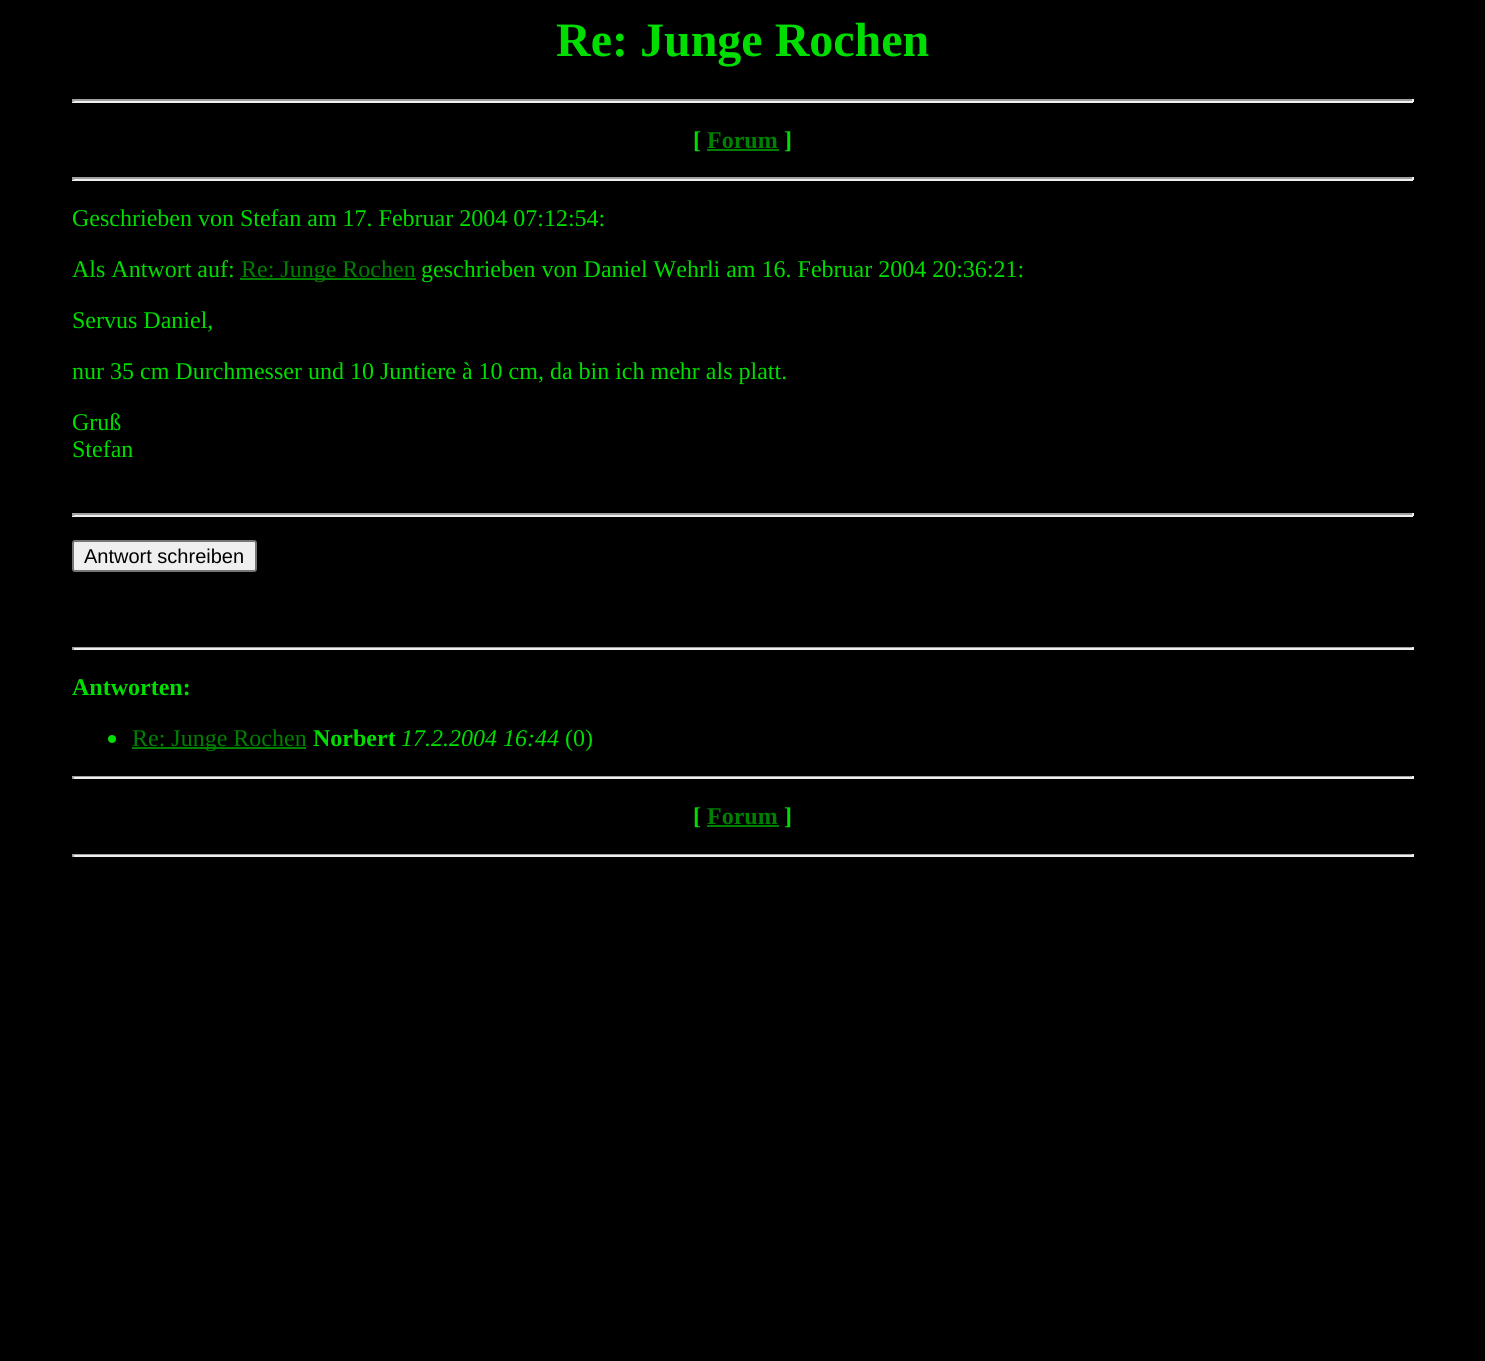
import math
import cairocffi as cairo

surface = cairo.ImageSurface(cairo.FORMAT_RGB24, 1485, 1361)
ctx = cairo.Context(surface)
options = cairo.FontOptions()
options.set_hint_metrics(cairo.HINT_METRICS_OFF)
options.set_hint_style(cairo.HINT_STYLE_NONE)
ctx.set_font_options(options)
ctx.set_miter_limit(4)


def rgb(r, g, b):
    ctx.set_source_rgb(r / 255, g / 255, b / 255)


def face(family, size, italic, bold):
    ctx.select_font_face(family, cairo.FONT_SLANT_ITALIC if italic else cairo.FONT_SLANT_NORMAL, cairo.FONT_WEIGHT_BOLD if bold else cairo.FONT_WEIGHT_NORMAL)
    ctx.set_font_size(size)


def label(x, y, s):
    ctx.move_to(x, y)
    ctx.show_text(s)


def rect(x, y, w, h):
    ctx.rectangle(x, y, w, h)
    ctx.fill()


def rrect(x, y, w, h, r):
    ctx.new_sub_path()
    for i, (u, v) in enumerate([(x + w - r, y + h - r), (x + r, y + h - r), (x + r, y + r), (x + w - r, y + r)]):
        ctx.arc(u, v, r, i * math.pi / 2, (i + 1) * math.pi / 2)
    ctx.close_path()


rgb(0, 0, 0)
ctx.paint()
face('Liberation Serif', 48, 0, 1)
rgb(0, 221, 0)
label(556, 56, 'Re: Junge Rochen')
rgb(159, 159, 159)
rect(72, 99, 1341, 2)
rgb(238, 238, 238)
rect(1412, 99, 2, 3)
rect(72, 101, 1341, 2)
rgb(159, 159, 159)
rect(72, 99, 2, 3)
face('Liberation Serif', 24, 0, 1)
rgb(0, 221, 0)
label(693, 148, '[')
rgb(0, 128, 0)
label(707, 148, 'Forum')
rect(707, 149, 72, 2)
rgb(0, 221, 0)
label(784, 148, ']')
rgb(159, 159, 159)
rect(72, 177, 1341, 2)
rgb(238, 238, 238)
rect(1412, 177, 2, 3)
rect(72, 179, 1341, 2)
rgb(159, 159, 159)
rect(72, 177, 2, 3)
face('Liberation Serif', 24, 0, 0)
rgb(0, 221, 0)
label(72, 226, 'Geschrieben von Stefan am 17. Februar 2004 07:12:54:')
label(72, 277, 'Als Antwort auf:')
rgb(0, 128, 0)
rect(240, 278, 176, 2)
label(241, 277, 'Re: Junge Rochen')
rgb(0, 221, 0)
label(421, 277, 'geschrieben von Daniel Wehrli am 16. Februar 2004 20:36:21:')
label(72, 328, 'Servus Daniel,')
label(72, 379, 'nur 35 cm Durchmesser und 10 Juntiere à 10 cm, da bin ich mehr als platt.')
label(72, 430, 'Gruß')
label(72, 457, 'Stefan')
rgb(159, 159, 159)
rect(72, 513, 1341, 2)
rgb(238, 238, 238)
rect(1412, 513, 2, 3)
rect(72, 515, 1341, 2)
rgb(159, 159, 159)
rect(72, 513, 2, 3)
rgb(239, 239, 239)
rrect(73, 541, 183, 30, 2)
ctx.fill_preserve()
rgb(118, 118, 118)
ctx.stroke()
face('Liberation Sans', 20, 0, 0)
rgb(0, 0, 0)
label(84, 563, 'Antwort schreiben')
rgb(159, 159, 159)
rect(72, 647, 1341, 1)
rgb(238, 238, 238)
rect(1412, 647, 2, 3)
rect(72, 648, 1341, 2)
rgb(159, 159, 159)
rect(72, 647, 2, 3)
face('Liberation Serif', 24, 0, 1)
rgb(0, 221, 0)
label(72, 695, 'Antworten:')
ctx.new_path()
ctx.arc(112, 739, 4, 0, 2 * math.pi)
ctx.fill()
rgb(0, 128, 0)
rect(132, 747, 174, 2)
face('Liberation Serif', 24, 0, 0)
label(132, 746, 'Re: Junge Rochen')
face('Liberation Serif', 24, 0, 1)
rgb(0, 221, 0)
label(313, 746, 'Norbert')
face('Liberation Serif', 24, 1, 0)
label(401, 746, '17.2.2004 16:44')
face('Liberation Serif', 24, 0, 0)
label(565, 746, '(0)')
rgb(159, 159, 159)
rect(72, 776, 1341, 1)
rgb(238, 238, 238)
rect(1412, 776, 2, 3)
rect(72, 777, 1341, 2)
rgb(159, 159, 159)
rect(72, 776, 2, 3)
face('Liberation Serif', 24, 0, 1)
rgb(0, 221, 0)
label(693, 824, '[')
rgb(0, 128, 0)
label(707, 824, 'Forum')
rect(707, 825, 72, 2)
rgb(0, 221, 0)
label(784, 824, ']')
rgb(159, 159, 159)
rect(72, 854, 1341, 1)
rgb(238, 238, 238)
rect(1412, 854, 2, 3)
rect(72, 855, 1341, 2)
rgb(159, 159, 159)
rect(72, 854, 2, 3)
surface.write_to_png('render.png')
